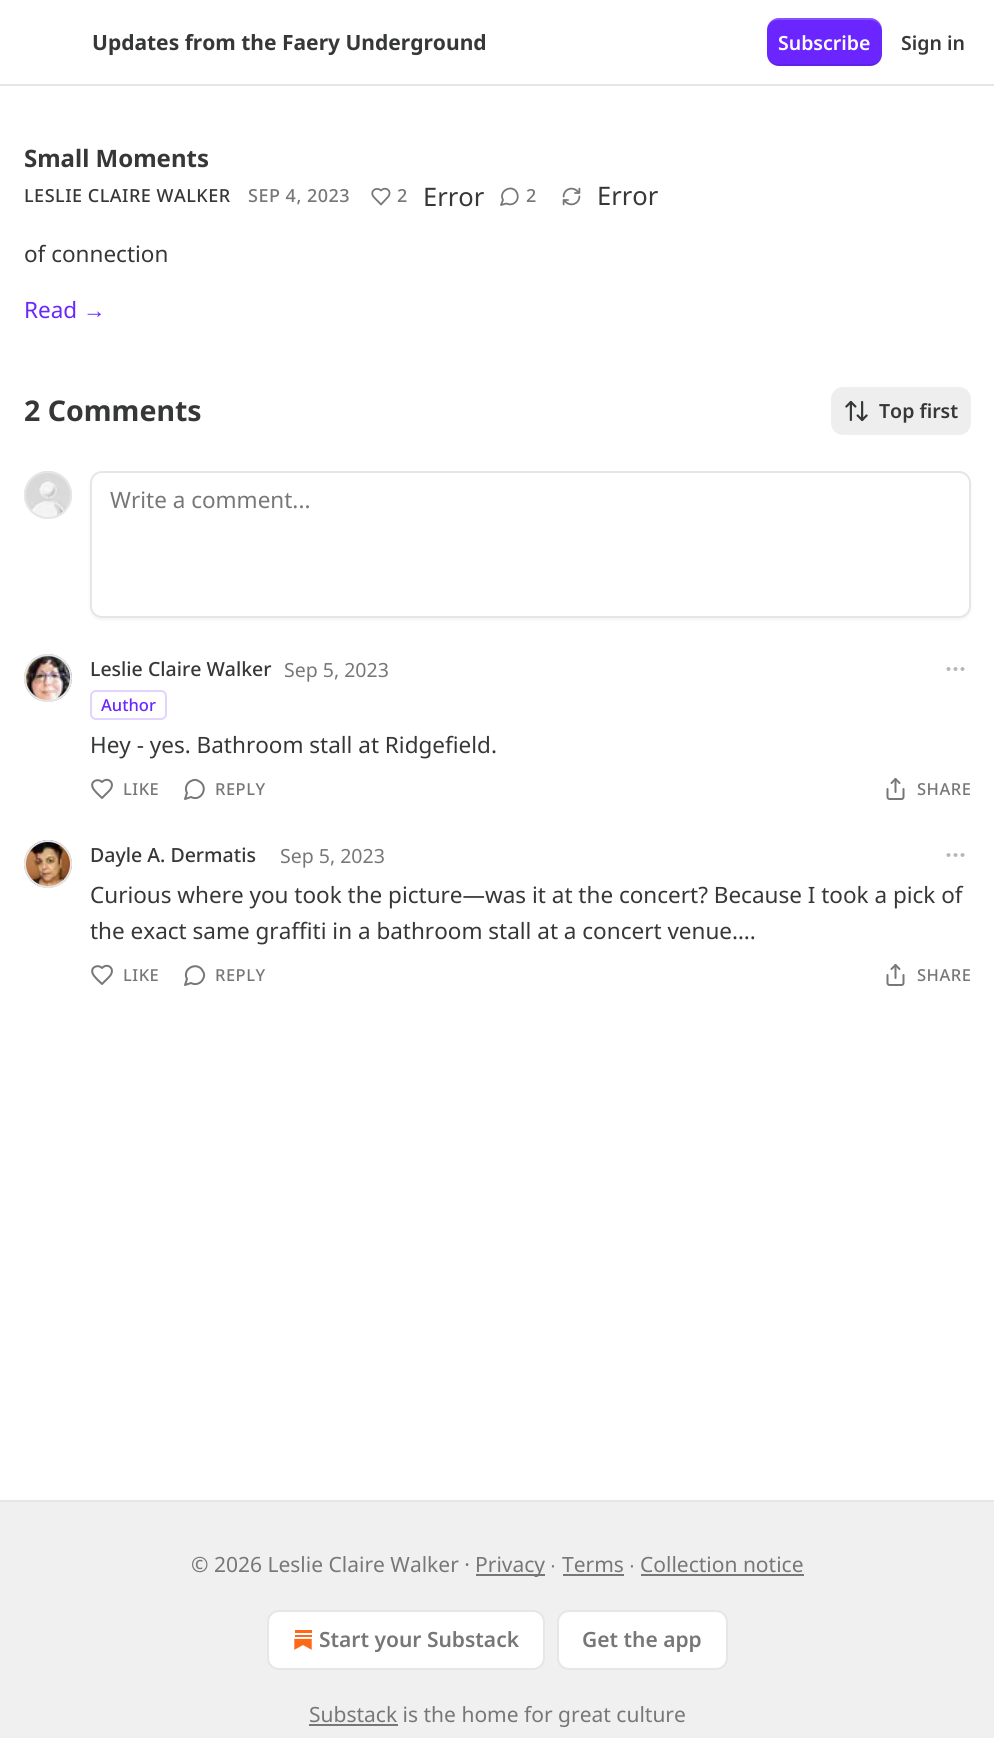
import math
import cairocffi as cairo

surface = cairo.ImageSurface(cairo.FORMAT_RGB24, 994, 1738)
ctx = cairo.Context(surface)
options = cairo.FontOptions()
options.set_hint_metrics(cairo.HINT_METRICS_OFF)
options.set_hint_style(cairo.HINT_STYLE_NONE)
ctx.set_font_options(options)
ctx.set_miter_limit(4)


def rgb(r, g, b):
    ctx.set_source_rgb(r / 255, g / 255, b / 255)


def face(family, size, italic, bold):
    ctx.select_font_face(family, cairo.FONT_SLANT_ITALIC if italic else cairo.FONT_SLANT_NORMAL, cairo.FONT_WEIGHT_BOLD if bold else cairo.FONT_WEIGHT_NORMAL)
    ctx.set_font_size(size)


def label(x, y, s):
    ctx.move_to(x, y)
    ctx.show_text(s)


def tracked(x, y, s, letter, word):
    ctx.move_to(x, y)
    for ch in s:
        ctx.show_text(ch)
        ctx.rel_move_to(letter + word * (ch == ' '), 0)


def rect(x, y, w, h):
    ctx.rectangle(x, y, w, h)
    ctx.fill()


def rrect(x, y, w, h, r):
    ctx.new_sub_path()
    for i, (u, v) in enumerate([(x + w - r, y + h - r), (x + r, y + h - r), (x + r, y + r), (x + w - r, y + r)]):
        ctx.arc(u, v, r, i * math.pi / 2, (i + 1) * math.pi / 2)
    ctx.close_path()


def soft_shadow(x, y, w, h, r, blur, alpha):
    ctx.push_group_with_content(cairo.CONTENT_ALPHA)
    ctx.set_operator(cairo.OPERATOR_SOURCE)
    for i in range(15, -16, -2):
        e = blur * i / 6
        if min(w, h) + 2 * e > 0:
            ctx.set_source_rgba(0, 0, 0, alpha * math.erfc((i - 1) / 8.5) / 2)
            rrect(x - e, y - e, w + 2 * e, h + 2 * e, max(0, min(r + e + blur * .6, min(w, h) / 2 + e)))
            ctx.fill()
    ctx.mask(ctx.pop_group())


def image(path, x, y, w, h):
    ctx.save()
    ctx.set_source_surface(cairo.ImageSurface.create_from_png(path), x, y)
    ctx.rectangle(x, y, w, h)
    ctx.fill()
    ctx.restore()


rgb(255, 255, 255)
ctx.paint()
rgb(230, 230, 230)
rect(0, 84, 994, 2)
face('Noto Sans', 21, 0, 1)
rgb(54, 55, 55)
label(92, 50, 'Updates from the Faery Underground')
rgb(107, 38, 255)
rrect(767, 18, 115, 48, 12)
ctx.fill()
ctx.set_source_rgba(0, 0, 0, 0.1)
ctx.new_path()
ctx.move_to(768, 58)
ctx.curve_to(769, 63, 774, 66, 779, 66)
ctx.line_to(870, 66)
ctx.curve_to(877, 66, 882, 61, 882, 54)
ctx.line_to(882, 52)
ctx.curve_to(882, 59, 877, 64, 870, 64)
ctx.line_to(778, 64)
ctx.curve_to(774, 64, 770, 62, 768, 58)
ctx.close_path()
ctx.fill()
ctx.set_source_rgba(1, 1, 1, 0.2)
ctx.new_path()
ctx.move_to(778, 20)
ctx.line_to(870, 20)
ctx.curve_to(877, 20, 882, 25, 882, 32)
ctx.line_to(882, 30)
ctx.curve_to(882, 23, 877, 18, 870, 18)
ctx.line_to(779, 18)
ctx.curve_to(774, 18, 769, 21, 768, 26)
ctx.curve_to(770, 22, 774, 20, 778, 20)
ctx.close_path()
ctx.fill()
face('Noto Sans SemiBold', 19.5, 0, 0)
rgb(255, 255, 255)
label(778, 50, 'Subscribe')
rgb(54, 55, 55)
label(901, 50, 'Sign in')
face('Noto Sans', 24, 0, 1)
label(24, 167, 'Small Moments')
face('Noto Sans Medium', 18, 0, 0)
tracked(24, 202, 'LESLIE CLAIRE WALKER', 0.5, 0)
rgb(119, 119, 119)
tracked(248, 202, 'SEP 4, 2023', 0.5, 0)
ctx.new_path()
ctx.move_to(387, 198)
ctx.curve_to(393.5, 192, 386, 185.5, 381, 190.5)
ctx.curve_to(377.5, 187, 371, 189.5, 372.5, 195)
ctx.curve_to(373.5, 197.5, 379, 202, 381, 204.5)
ctx.close_path()
ctx.set_line_width(1.8)
ctx.set_line_cap(cairo.LINE_CAP_ROUND)
ctx.set_line_join(cairo.LINE_JOIN_ROUND)
ctx.stroke()
tracked(397, 202, '2', 0.5, 0)
face('Noto Sans', 25.5, 0, 0)
rgb(54, 55, 55)
label(423, 206, 'Error')
ctx.new_path()
ctx.move_to(506.5, 203.5)
ctx.curve_to(510.5, 205.5, 515, 204, 517, 200)
ctx.curve_to(518, 198, 518, 195.5, 517, 193)
ctx.curve_to(513, 183.5, 498, 190.5, 503, 200)
ctx.line_to(501, 205)
ctx.close_path()
rgb(119, 119, 119)
ctx.stroke()
face('Noto Sans Medium', 18, 0, 0)
tracked(526, 202, '2', 0.5, 0)
image('image0.png', 562, 187, 19, 19)
face('Noto Sans', 25.5, 0, 0)
rgb(54, 55, 55)
label(597, 205, 'Error')
face('Noto Sans', 22.5, 0, 0)
label(24, 262, 'of connection')
rgb(107, 38, 255)
label(24, 318, 'Read')
face('Liberation Sans', 22.5, 0, 0)
label(83, 318, '→')
face('Noto Sans', 28.5, 0, 1)
rgb(54, 55, 55)
label(24, 421, '2 Comments')
rgb(238, 238, 238)
rrect(831, 387, 140, 48, 12)
ctx.fill()
image('image1.png', 845, 400, 23, 22)
face('Noto Sans SemiBold', 19.5, 0, 0)
rgb(54, 55, 55)
label(879, 418, 'Top first')
ctx.new_path()
ctx.arc(48, 495, 23, 0, 2 * math.pi)
rgb(230, 230, 230)
ctx.set_line_width(2)
ctx.set_line_cap(cairo.LINE_CAP_BUTT)
ctx.set_line_join(cairo.LINE_JOIN_MITER)
ctx.stroke()
image('image2.png', 24, 471, 48, 48)
ctx.arc(48, 495, 23, 0, 2 * math.pi)
ctx.stroke()
rgb(0, 0, 0)
soft_shadow(90, 473, 881, 147, 12, 1.5, 0.05)
rgb(255, 255, 255)
rrect(91, 472, 879, 145, 11)
ctx.fill_preserve()
rgb(230, 230, 230)
ctx.stroke()
face('Noto Sans', 22.5, 0, 0)
rgb(119, 119, 119)
label(110, 508, 'Write a comment...')
ctx.new_path()
ctx.arc(48, 678, 23, 0, 2 * math.pi)
rgb(230, 230, 230)
ctx.stroke()
image('image3.png', 24, 654, 48, 48)
ctx.arc(48, 678, 23, 0, 2 * math.pi)
ctx.stroke()
face('Noto Sans Medium', 19.5, 0, 0)
rgb(54, 55, 55)
label(90, 676, 'Leslie Claire Walker')
face('Noto Sans', 19.5, 0, 0)
rgb(119, 119, 119)
label(284, 677, 'Sep 5, 2023')
rrect(91, 691, 75, 28, 5)
rgb(225, 212, 255)
ctx.stroke()
face('Noto Sans Medium', 16.5, 0, 0)
rgb(107, 38, 255)
label(101, 711, 'Author')
ctx.new_path()
ctx.arc(955.5, 669, 1, 0, 2 * math.pi)
rgb(182, 182, 182)
ctx.stroke()
ctx.arc(962.5, 669, 1, 0, 2 * math.pi)
ctx.stroke()
ctx.arc(948.5, 669, 1, 0, 2 * math.pi)
ctx.stroke()
face('Noto Sans', 22.5, 0, 0)
rgb(54, 55, 55)
label(90, 753, 'Hey - yes. Bathroom stall at Ridgefield.')
ctx.new_path()
ctx.move_to(109, 791)
ctx.curve_to(116.5, 783.5, 108, 776, 102, 782)
ctx.curve_to(98, 778, 90.5, 781, 92.5, 787)
ctx.curve_to(93.5, 790.5, 99.5, 795.5, 102, 798)
ctx.close_path()
rgb(119, 119, 119)
ctx.set_line_cap(cairo.LINE_CAP_ROUND)
ctx.set_line_join(cairo.LINE_JOIN_ROUND)
ctx.stroke()
face('Noto Sans Medium', 16.5, 0, 0)
tracked(123, 795, 'LIKE', 0.5, 0)
ctx.new_path()
ctx.move_to(191, 797)
ctx.curve_to(201.5, 802.5, 209.5, 786, 198.5, 781)
ctx.curve_to(196.5, 779.5, 193.5, 779.5, 191, 781)
ctx.curve_to(186.5, 783, 184.5, 788.5, 187, 793)
ctx.line_to(185, 799)
ctx.close_path()
ctx.stroke()
tracked(215, 795, 'REPLY', 0.5, 0)
image('image4.png', 886, 778, 19, 22)
tracked(917, 795, 'SHARE', 0.5, 0)
ctx.new_path()
ctx.arc(48, 864, 23, 0, 2 * math.pi)
rgb(230, 230, 230)
ctx.set_line_cap(cairo.LINE_CAP_BUTT)
ctx.set_line_join(cairo.LINE_JOIN_MITER)
ctx.stroke()
image('image5.png', 24, 840, 48, 48)
ctx.arc(48, 864, 23, 0, 2 * math.pi)
ctx.stroke()
face('Noto Sans Medium', 19.5, 0, 0)
rgb(54, 55, 55)
label(90, 862, 'Dayle A. Dermatis')
face('Noto Sans', 19.5, 0, 0)
rgb(119, 119, 119)
label(280, 863, 'Sep 5, 2023')
ctx.new_path()
ctx.arc(955.5, 855, 1, 0, 2 * math.pi)
rgb(182, 182, 182)
ctx.stroke()
ctx.arc(962.5, 855, 1, 0, 2 * math.pi)
ctx.stroke()
ctx.arc(948.5, 855, 1, 0, 2 * math.pi)
ctx.stroke()
face('Noto Sans', 22.5, 0, 0)
rgb(54, 55, 55)
label(90, 903, 'Curious where you took the picture—was it at the concert? Because I took a pick of')
label(90, 939, 'the exact same graffiti in a bathroom stall at a concert venue….')
ctx.new_path()
ctx.move_to(109, 977)
ctx.curve_to(116.5, 969.5, 108, 962, 102, 968)
ctx.curve_to(98, 964, 90.5, 967, 92.5, 973)
ctx.curve_to(93.5, 976.5, 99.5, 981.5, 102, 984)
ctx.close_path()
rgb(119, 119, 119)
ctx.set_line_cap(cairo.LINE_CAP_ROUND)
ctx.set_line_join(cairo.LINE_JOIN_ROUND)
ctx.stroke()
face('Noto Sans Medium', 16.5, 0, 0)
tracked(123, 981, 'LIKE', 0.5, 0)
ctx.new_path()
ctx.move_to(191, 983)
ctx.curve_to(195.5, 985.5, 201, 983.5, 203, 979)
ctx.curve_to(204.5, 976.5, 204.5, 973.5, 203, 971.5)
ctx.curve_to(198, 960.5, 181.5, 968.5, 187, 979)
ctx.line_to(185, 985)
ctx.close_path()
ctx.stroke()
tracked(215, 981, 'REPLY', 0.5, 0)
image('image4.png', 886, 964, 19, 22)
tracked(917, 981, 'SHARE', 0.5, 0)
rgb(240, 240, 240)
rect(0, 1502, 994, 236)
rgb(230, 230, 230)
rect(0, 1500, 994, 2)
face('Noto Sans', 21, 0, 0)
rgb(119, 119, 119)
label(191, 1572, '© 2026 Leslie Claire Walker ·')
rect(476, 1574, 69, 2)
label(475, 1572, 'Privacy')
face('Liberation Sans', 21, 0, 0)
label(550, 1572, '∙')
face('Noto Sans', 21, 0, 0)
label(562, 1572, 'Terms')
rect(563, 1574, 61, 2)
face('Liberation Sans', 21, 0, 0)
label(629, 1572, '∙')
face('Noto Sans', 21, 0, 0)
label(640, 1572, 'Collection notice')
rect(641, 1574, 163, 2)
rgb(255, 255, 255)
rrect(268, 1611, 276, 58, 11)
ctx.fill_preserve()
rgb(230, 230, 230)
ctx.set_line_cap(cairo.LINE_CAP_BUTT)
ctx.set_line_join(cairo.LINE_JOIN_MITER)
ctx.stroke()
image('image6.png', 294, 1630, 18, 20)
face('Noto Sans SemiBold', 21, 0, 0)
rgb(119, 119, 119)
label(319, 1647, 'Start your Substack')
rgb(255, 255, 255)
rrect(558, 1611, 169, 58, 11)
ctx.fill_preserve()
rgb(230, 230, 230)
ctx.stroke()
rgb(119, 119, 119)
label(582, 1647, 'Get the app')
rect(309, 1724, 89, 2)
face('Noto Sans', 21, 0, 0)
label(309, 1722, 'Substack is the home for great culture')
surface.write_to_png('render.png')
